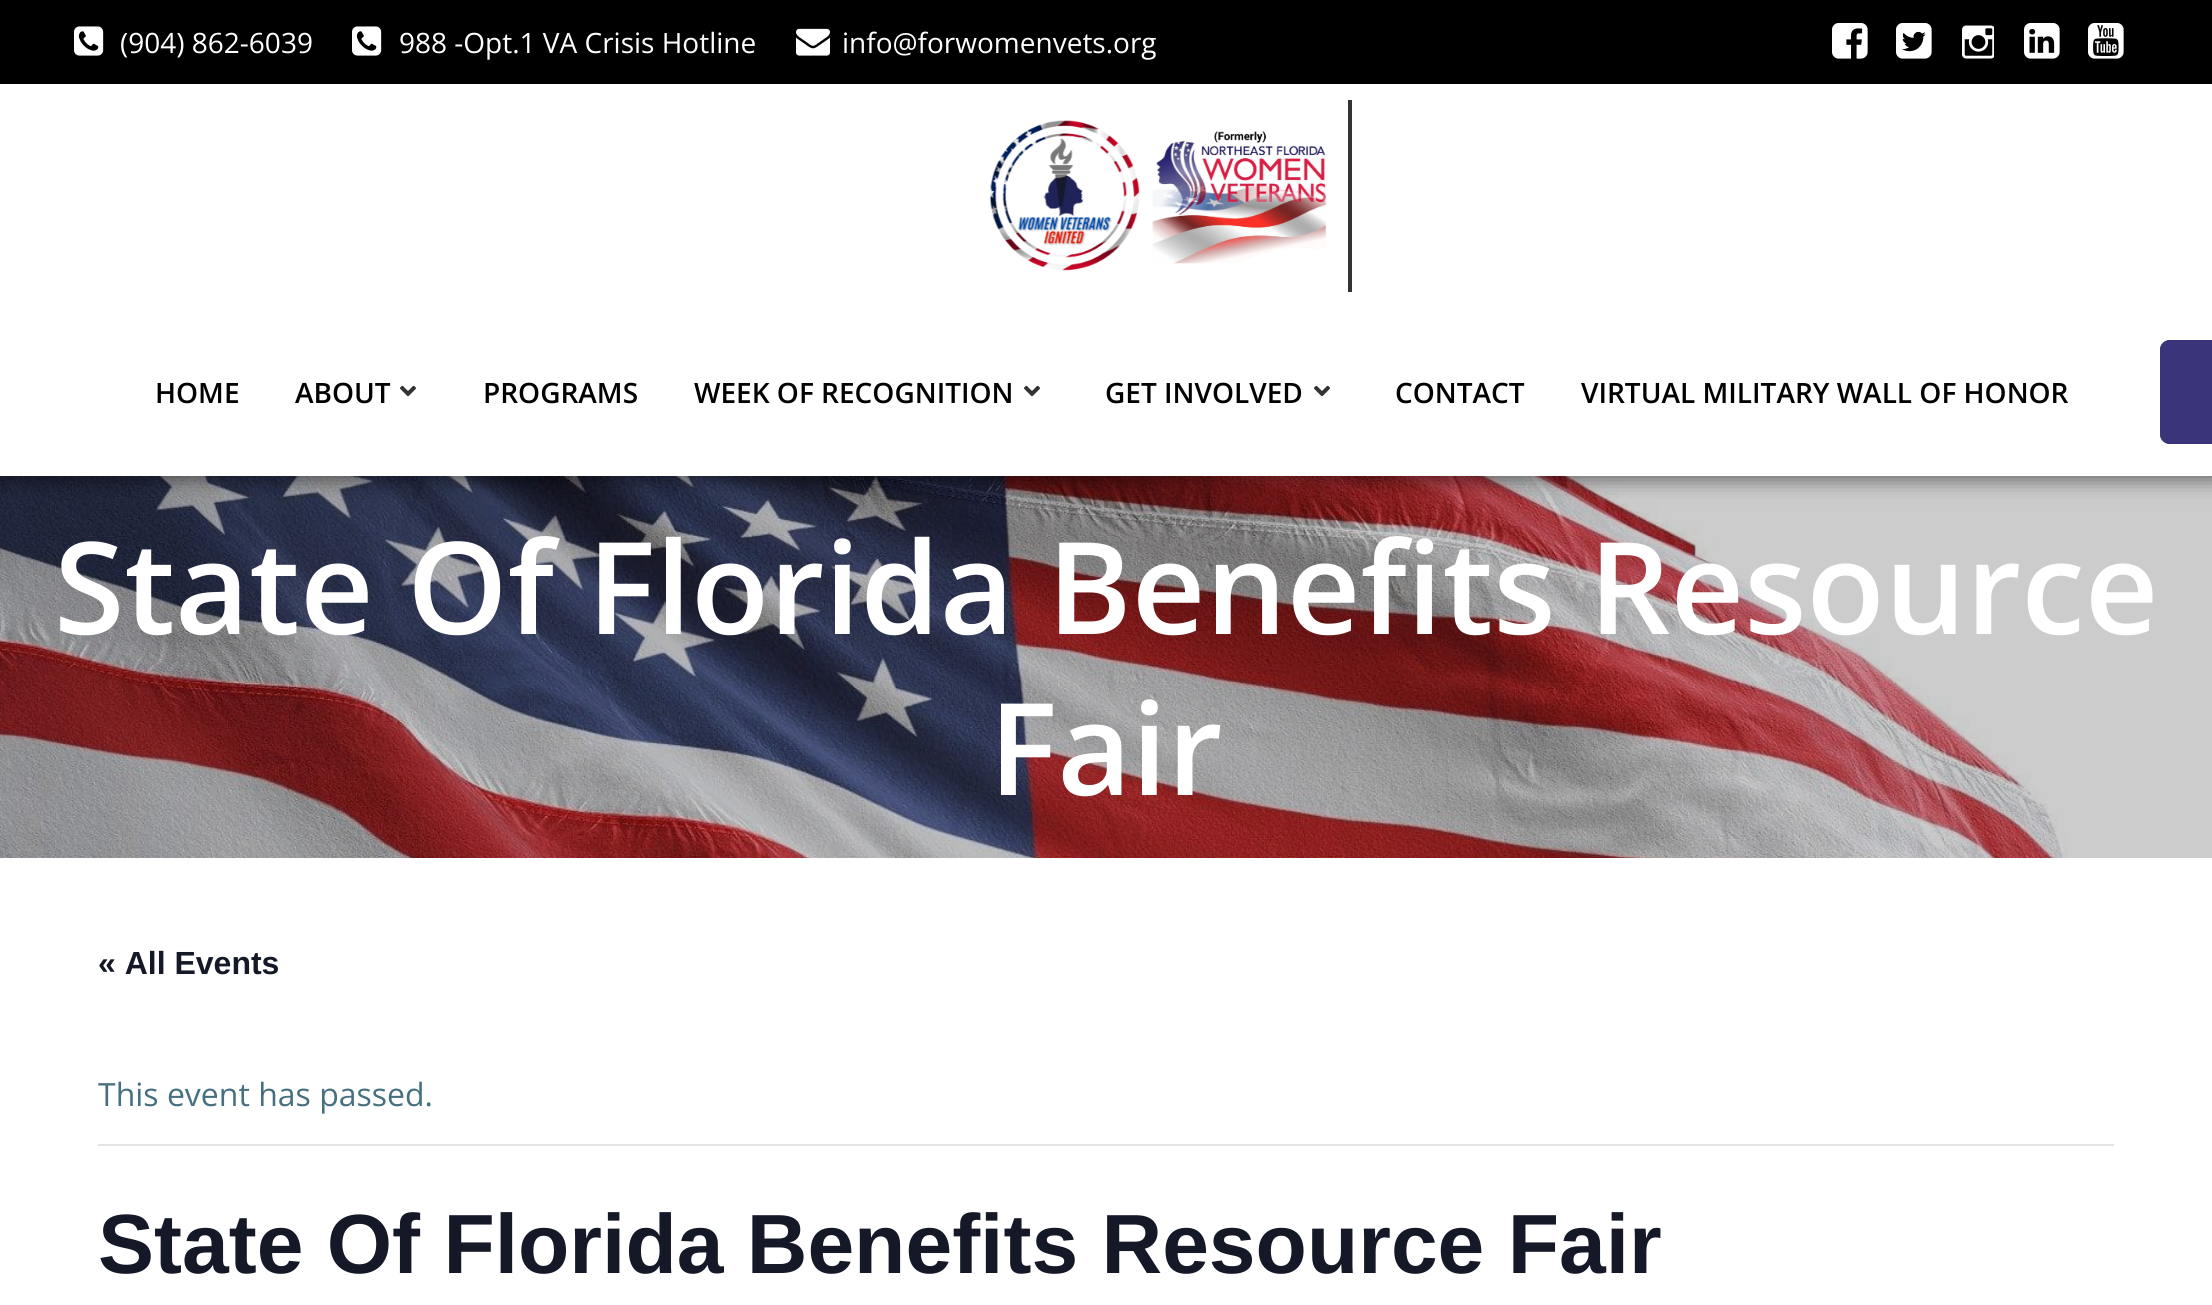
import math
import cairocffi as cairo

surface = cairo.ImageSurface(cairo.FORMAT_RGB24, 2212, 1305)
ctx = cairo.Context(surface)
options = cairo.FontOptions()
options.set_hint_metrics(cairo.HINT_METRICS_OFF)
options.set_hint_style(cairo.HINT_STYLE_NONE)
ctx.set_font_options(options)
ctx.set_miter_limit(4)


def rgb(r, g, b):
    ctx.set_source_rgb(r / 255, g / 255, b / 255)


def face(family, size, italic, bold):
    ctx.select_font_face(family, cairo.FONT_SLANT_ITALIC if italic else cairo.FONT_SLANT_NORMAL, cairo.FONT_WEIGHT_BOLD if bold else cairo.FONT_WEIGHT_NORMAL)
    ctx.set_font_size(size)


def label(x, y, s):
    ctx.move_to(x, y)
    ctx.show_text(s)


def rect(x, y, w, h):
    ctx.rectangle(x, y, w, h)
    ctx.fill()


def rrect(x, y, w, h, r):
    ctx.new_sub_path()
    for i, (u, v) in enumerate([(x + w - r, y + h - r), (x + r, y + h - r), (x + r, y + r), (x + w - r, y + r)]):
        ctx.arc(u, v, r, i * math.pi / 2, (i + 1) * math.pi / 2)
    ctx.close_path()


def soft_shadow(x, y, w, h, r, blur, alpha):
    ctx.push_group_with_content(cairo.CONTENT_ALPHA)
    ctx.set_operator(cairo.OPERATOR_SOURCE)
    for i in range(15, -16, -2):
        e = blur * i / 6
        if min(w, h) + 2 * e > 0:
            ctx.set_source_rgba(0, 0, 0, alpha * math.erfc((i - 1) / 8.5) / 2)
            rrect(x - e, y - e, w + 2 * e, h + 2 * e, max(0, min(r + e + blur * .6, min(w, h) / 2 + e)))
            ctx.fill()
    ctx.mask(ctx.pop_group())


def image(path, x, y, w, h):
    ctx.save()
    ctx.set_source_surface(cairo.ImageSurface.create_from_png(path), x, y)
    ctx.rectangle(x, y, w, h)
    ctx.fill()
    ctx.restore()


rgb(255, 255, 255)
ctx.paint()
rgb(0, 0, 0)
rect(0, 0, 2212, 84)
image('image0.png', 74, 26, 30, 30)
face('Open Sans', 28, 0, 0)
rgb(255, 255, 255)
label(120, 53, '(904) 862-6039')
image('image0.png', 352, 26, 30, 30)
label(399, 53, '988 -Opt.1 VA Crisis Hotline')
image('image1.png', 796, 28, 34, 28)
label(842, 53, 'info@forwomenvets.org')
image('image2.png', 1832, 23, 36, 36)
image('image3.png', 1896, 23, 36, 36)
image('image4.png', 1962, 25, 32, 34)
image('image5.png', 2024, 23, 36, 36)
image('image6.png', 2088, 23, 36, 36)
image('image9.png', 0, 476, 2212, 382)
ctx.save()
ctx.set_fill_rule(cairo.FILL_RULE_EVEN_ODD)
ctx.new_path()
ctx.move_to(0, 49)
ctx.line_to(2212, 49)
ctx.line_to(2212, 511)
ctx.line_to(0, 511)
ctx.close_path()
ctx.move_to(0, 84)
ctx.line_to(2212, 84)
ctx.line_to(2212, 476)
ctx.line_to(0, 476)
ctx.close_path()
ctx.clip()
rgb(0, 0, 0)
soft_shadow(-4, 80, 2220, 400, 0, 10, 0.5)
ctx.restore()
rgb(51, 51, 51)
rect(1348, 100, 4, 192)
image('image7.png', 989, 120, 338, 151)
face('Open Sans SemiBold', 28, 0, 0)
rgb(0, 0, 0)
label(155, 403, 'HOME')
label(295, 403, 'ABOUT')
image('image8.png', 400, 385, 16, 12)
label(483, 403, 'PROGRAMS')
label(694, 403, 'WEEK OF RECOGNITION')
image('image8.png', 1024, 385, 16, 12)
label(1105, 403, 'GET INVOLVED')
image('image8.png', 1314, 385, 16, 12)
label(1395, 403, 'CONTACT')
label(1581, 403, 'VIRTUAL MILITARY WALL OF HONOR')
rgb(58, 53, 123)
ctx.new_path()
ctx.move_to(2170, 340)
ctx.line_to(2212, 340)
ctx.line_to(2212, 444)
ctx.line_to(2170, 444)
ctx.curve_to(2164.5, 444, 2160, 439.5, 2160, 434)
ctx.line_to(2160, 350)
ctx.curve_to(2160, 344.5, 2164.5, 340, 2170, 340)
ctx.close_path()
ctx.fill()
rrect(2162, 342, 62, 100, 8)
ctx.set_line_width(4)
ctx.stroke()
face('Open Sans SemiBold', 128, 0, 0)
rgb(255, 255, 255)
label(54, 634, 'State Of Florida Benefits Resource')
label(989, 795, 'Fair')
face('Liberation Sans', 32, 0, 1)
rgb(20, 24, 39)
label(98, 974, '« All Events')
rgb(228, 228, 228)
rect(98, 1144, 2016, 2)
face('Open Sans', 32, 0, 0)
rgb(70, 112, 127)
label(98, 1106, 'This event has passed.')
face('Liberation Sans', 84, 0, 1)
rgb(20, 24, 39)
label(98, 1273, 'State Of Florida Benefits Resource Fair')
surface.write_to_png('render.png')
